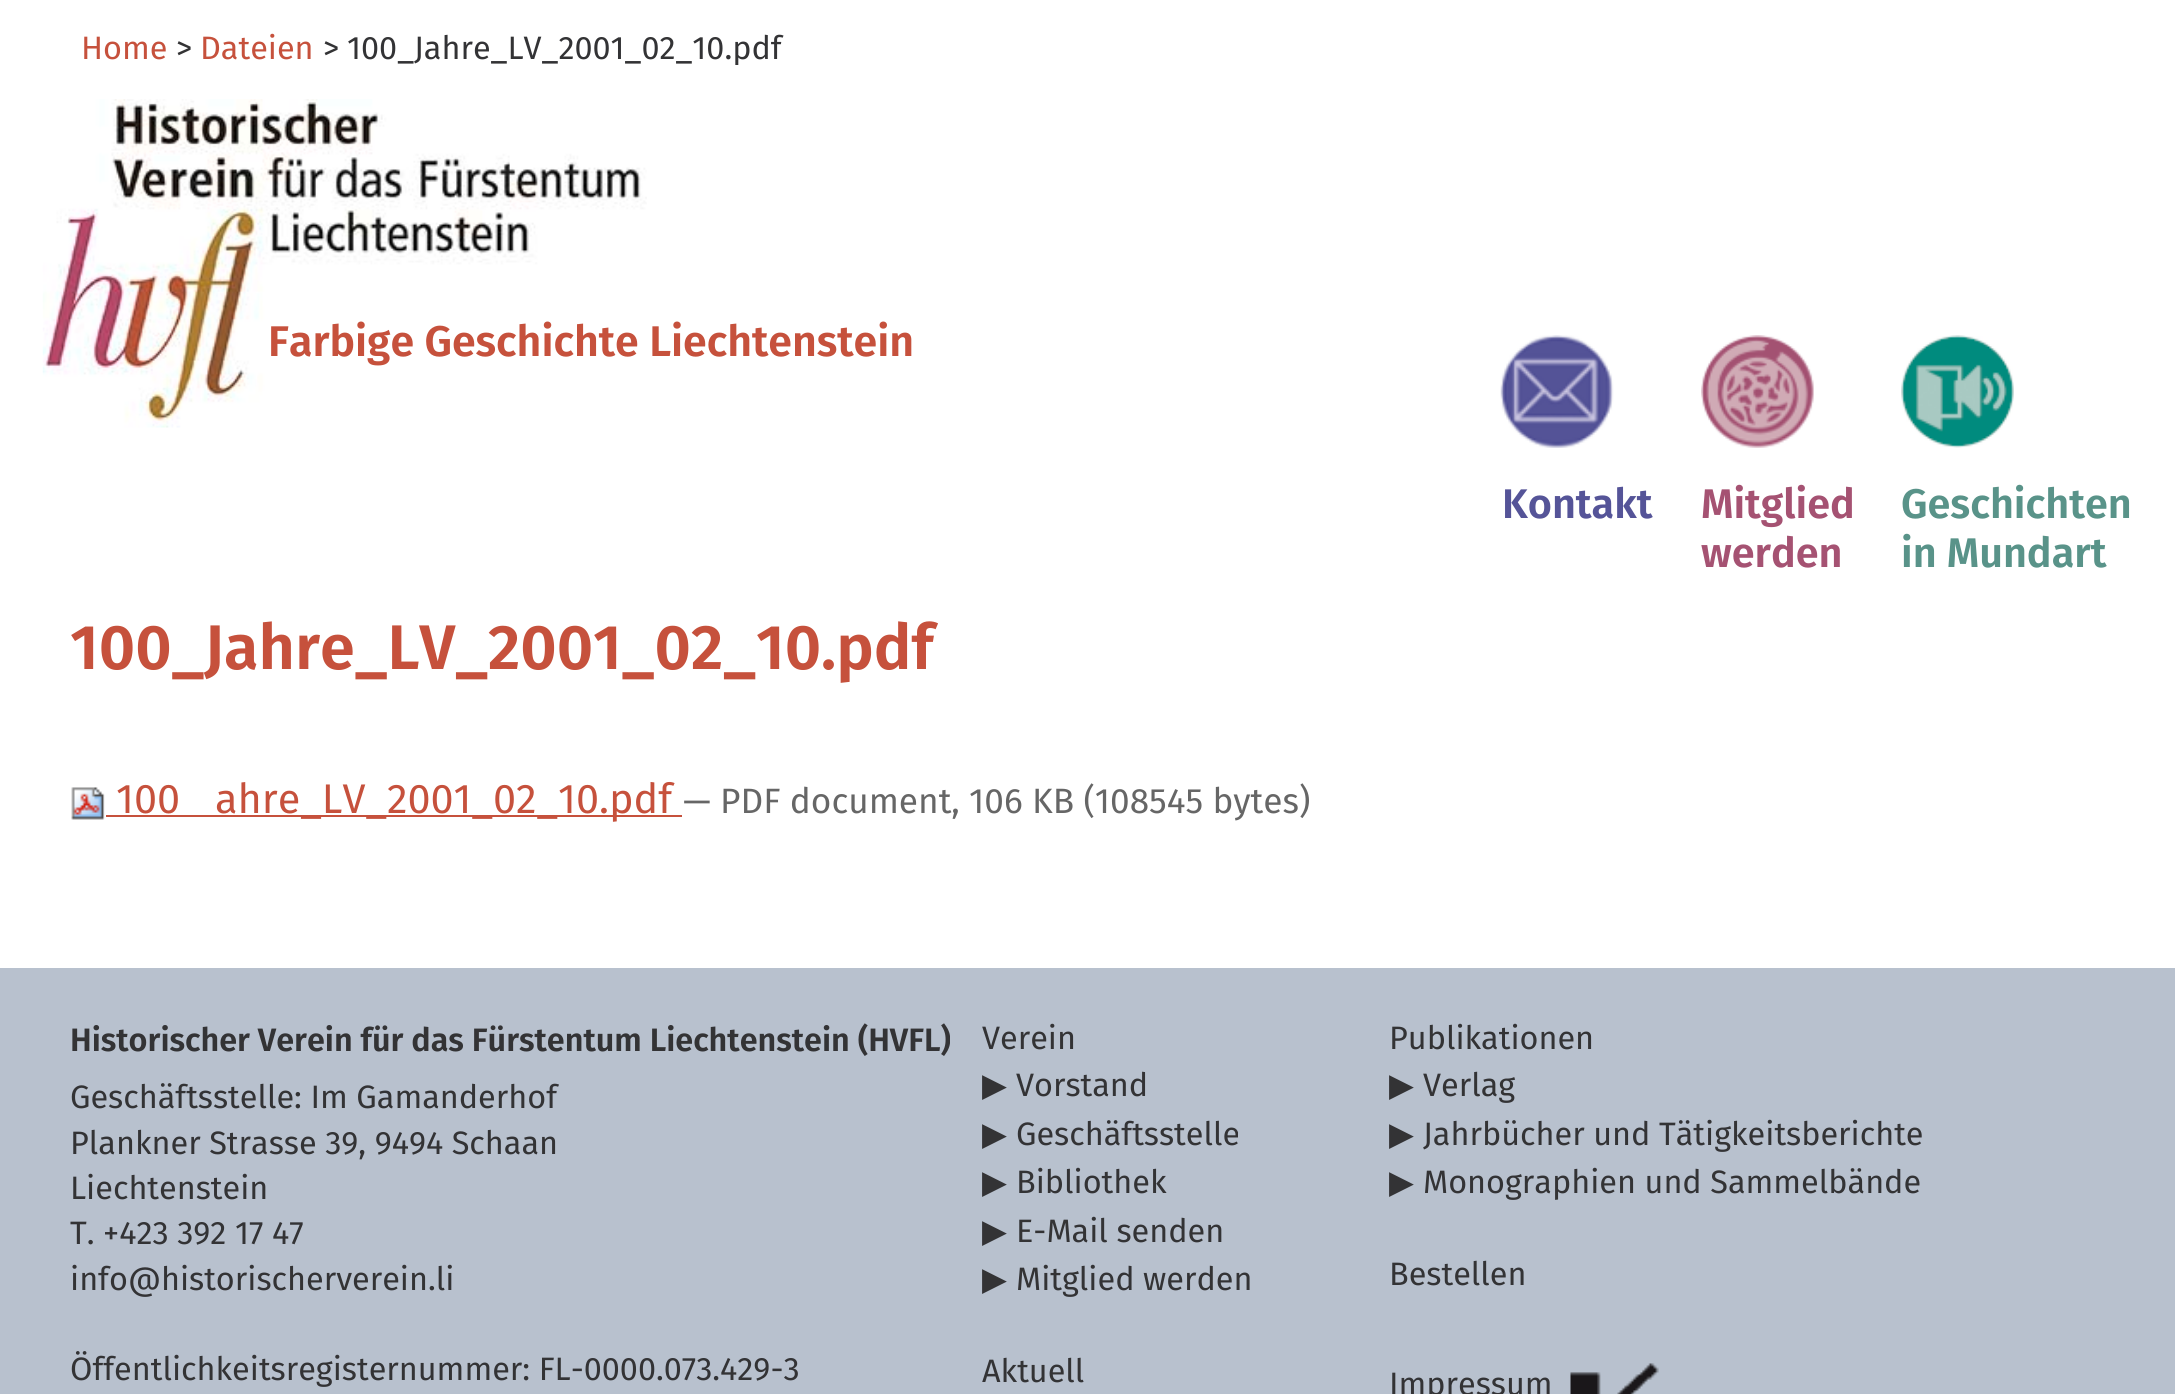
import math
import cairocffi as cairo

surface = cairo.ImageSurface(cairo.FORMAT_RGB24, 2175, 1394)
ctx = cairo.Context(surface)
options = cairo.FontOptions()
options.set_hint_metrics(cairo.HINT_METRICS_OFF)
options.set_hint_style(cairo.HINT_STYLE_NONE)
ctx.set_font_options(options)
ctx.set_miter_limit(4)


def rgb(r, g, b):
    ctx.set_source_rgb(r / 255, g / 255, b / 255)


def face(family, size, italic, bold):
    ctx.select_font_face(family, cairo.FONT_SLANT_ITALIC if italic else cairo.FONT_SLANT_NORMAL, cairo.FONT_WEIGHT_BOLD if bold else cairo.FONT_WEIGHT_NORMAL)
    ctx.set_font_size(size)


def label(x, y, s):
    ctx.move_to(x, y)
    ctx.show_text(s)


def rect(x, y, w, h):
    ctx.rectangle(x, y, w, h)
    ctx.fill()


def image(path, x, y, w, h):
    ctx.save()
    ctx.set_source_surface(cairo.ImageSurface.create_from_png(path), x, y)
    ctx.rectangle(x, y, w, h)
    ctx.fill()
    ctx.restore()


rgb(255, 255, 255)
ctx.paint()
face('Fira Sans', 32.4, 0, 0)
rgb(198, 81, 60)
label(81, 59, 'Home')
rgb(51, 51, 53)
label(176, 59, '>')
rgb(198, 81, 60)
label(200, 59, 'Dateien')
rgb(51, 51, 53)
label(323, 59, '>')
ctx.save()
ctx.rectangle(81, 34, 2070, 31)
ctx.clip()
label(347, 59, '100_Jahre_LV_2001_02_10.pdf')
ctx.restore()
image('image0.png', 42, 99, 605, 329)
face('Fira Sans SemiBold', 42.9, 0, 0)
rgb(198, 81, 60)
label(268, 356, 'Farbige Geschichte Liechtenstein')
image('image1.png', 1500, 335, 114, 113)
face('Fira Sans SemiBold', 41.4, 0, 0)
rgb(85, 84, 152)
label(1502, 518, 'Kontakt')
image('image2.png', 1701, 335, 113, 113)
rgb(165, 82, 114)
label(1701, 518, 'Mitglied')
label(1701, 567, 'werden')
image('image3.png', 1901, 335, 113, 113)
rgb(89, 147, 137)
label(1901, 518, 'Geschichten')
label(1901, 567, 'in Mundart')
face('Fira Sans SemiBold', 63, 0, 0)
rgb(198, 81, 60)
label(70, 669, '100_Jahre_LV_2001_02_10.pdf')
image('image4.png', 71, 787, 34, 33)
face('Fira Sans', 41.4, 0, 0)
label(116, 813, '100')
rect(106, 815, 576, 2)
label(215, 813, 'ahre_LV_2001_02_10.pdf')
face('Fira Sans', 35.2, 0, 0)
rgb(102, 102, 102)
label(683, 813, '— PDF document, 106 KB (108545 bytes)')
rgb(184, 193, 206)
rect(0, 968, 2175, 426)
face('Fira Sans SemiBold', 32.4, 0, 0)
rgb(51, 51, 53)
label(70, 1051, 'Historischer Verein für das Fürstentum Liechtenstein (HVFL)')
face('Fira Sans', 32.4, 0, 0)
label(70, 1108, 'Geschäftsstelle: Im Gamanderhof')
label(70, 1154, 'Plankner Strasse 39, 9494 Schaan')
label(70, 1199, 'Liechtenstein')
label(70, 1244, 'T. +423 392 17 47')
label(70, 1290, 'info@historischerverein.li')
label(70, 1380, 'Öffentlichkeitsregisternummer: FL-0000.073.429-3')
label(982, 1049, 'Verein')
face('DejaVu Sans', 32.4, 0, 0)
label(982, 1096, '▶')
face('Fira Sans', 32.4, 0, 0)
label(1016, 1096, 'Vorstand')
face('DejaVu Sans', 32.4, 0, 0)
label(982, 1145, '▶')
face('Fira Sans', 32.4, 0, 0)
label(1016, 1145, 'Geschäftsstelle')
face('DejaVu Sans', 32.4, 0, 0)
label(982, 1193, '▶')
face('Fira Sans', 32.4, 0, 0)
label(1016, 1193, 'Bibliothek')
face('DejaVu Sans', 32.4, 0, 0)
label(982, 1242, '▶')
face('Fira Sans', 32.4, 0, 0)
label(1016, 1242, 'E-Mail senden')
face('DejaVu Sans', 32.4, 0, 0)
label(982, 1290, '▶')
face('Fira Sans', 32.4, 0, 0)
label(1016, 1290, 'Mitglied werden')
label(982, 1382, 'Aktuell')
label(1389, 1049, 'Publikationen')
face('DejaVu Sans', 32.4, 0, 0)
label(1389, 1096, '▶')
face('Fira Sans', 32.4, 0, 0)
label(1423, 1096, 'Verlag')
face('DejaVu Sans', 32.4, 0, 0)
label(1389, 1145, '▶')
face('Fira Sans', 32.4, 0, 0)
label(1423, 1145, 'Jahrbücher und Tätigkeitsberichte')
face('DejaVu Sans', 32.4, 0, 0)
label(1389, 1193, '▶')
face('Fira Sans', 32.4, 0, 0)
label(1423, 1193, 'Monographien und Sammelbände')
label(1389, 1285, 'Bestellen')
label(1389, 1395, 'Impressum')
image('image5.png', 1570, 1363, 89, 31)
surface.write_to_png('render.png')
